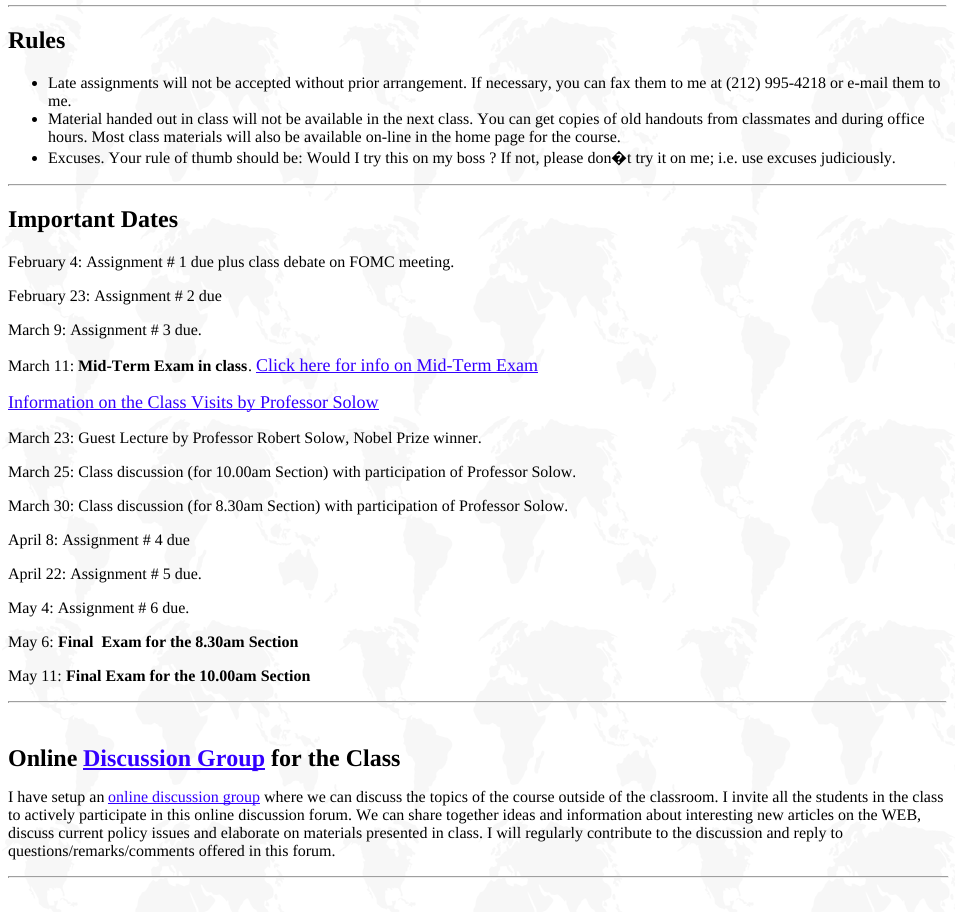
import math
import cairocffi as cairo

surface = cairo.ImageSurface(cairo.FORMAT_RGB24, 955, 912)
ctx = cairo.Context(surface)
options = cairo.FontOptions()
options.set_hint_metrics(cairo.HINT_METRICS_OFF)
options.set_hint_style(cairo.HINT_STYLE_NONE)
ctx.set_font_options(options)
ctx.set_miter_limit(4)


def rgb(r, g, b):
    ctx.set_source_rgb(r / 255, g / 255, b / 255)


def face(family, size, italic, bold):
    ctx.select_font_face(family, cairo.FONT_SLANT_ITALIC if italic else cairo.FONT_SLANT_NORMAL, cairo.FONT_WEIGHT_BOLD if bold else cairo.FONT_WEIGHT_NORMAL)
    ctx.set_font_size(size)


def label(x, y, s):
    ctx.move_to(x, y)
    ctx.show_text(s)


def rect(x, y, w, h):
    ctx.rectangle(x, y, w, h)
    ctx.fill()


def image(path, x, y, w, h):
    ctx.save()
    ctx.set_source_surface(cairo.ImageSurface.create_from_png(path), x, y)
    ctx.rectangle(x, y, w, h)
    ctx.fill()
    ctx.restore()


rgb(255, 255, 255)
ctx.paint()
image('image0.png', 2, 0, 953, 912)
rgb(159, 159, 159)
rect(8, 5, 939, 1)
rgb(238, 238, 238)
rect(946, 5, 1, 2)
rect(8, 6, 939, 1)
rgb(159, 159, 159)
rect(8, 5, 1, 2)
face('Liberation Serif', 24, 0, 1)
rgb(0, 0, 0)
label(8, 48, 'Rules')
ctx.new_path()
ctx.arc(34.5, 83.5, 2.5, 0, 2 * math.pi)
ctx.fill()
face('Liberation Serif', 16, 0, 0)
label(48, 88, 'Late assignments will not be accepted without prior arrangement. If necessary, you can fax them to me at (212) 995-4218 or e-mail them to')
label(48, 106, 'me.')
ctx.new_path()
ctx.arc(34.5, 119.5, 2.5, 0, 2 * math.pi)
ctx.fill()
label(48, 124, 'Material handed out in class will not be available in the next class. You can get copies of old handouts from classmates and during office')
label(48, 142, 'hours. Most class materials will also be available on-line in the home page for the course.')
ctx.new_path()
ctx.arc(34.5, 158.5, 2.5, 0, 2 * math.pi)
ctx.fill()
label(48, 163, 'Excuses. Your rule of thumb should be: Would I try this on my boss ? If not, please don')
face('Noto Sans', 16, 0, 0)
label(611, 163, '�')
face('Liberation Serif', 16, 0, 0)
label(627, 163, 't try it on me; i.e. use excuses judiciously.')
rgb(159, 159, 159)
rect(8, 184, 939, 1)
rgb(238, 238, 238)
rect(946, 184, 1, 2)
rect(8, 185, 939, 1)
rgb(159, 159, 159)
rect(8, 184, 1, 2)
face('Liberation Serif', 24, 0, 1)
rgb(0, 0, 0)
label(8, 227, 'Important Dates')
face('Liberation Serif', 16, 0, 0)
label(8, 267, 'February 4: Assignment # 1 due plus class debate on FOMC meeting.')
label(8, 301, 'February 23: Assignment # 2 due')
label(8, 335, 'March 9: Assignment # 3 due.')
label(8, 371, 'March 11:')
face('Liberation Serif', 16, 0, 1)
label(78, 371, 'Mid-Term Exam in class')
face('Liberation Serif', 16, 0, 0)
label(248, 371, '.')
face('Liberation Serif', 18, 0, 0)
rgb(51, 0, 255)
label(256, 371, 'Click here for info on Mid-Term Exam')
rect(256, 372, 282, 1)
rect(8, 409, 371, 1)
label(8, 408, 'Information on the Class Visits by Professor Solow')
face('Liberation Serif', 16, 0, 0)
rgb(0, 0, 0)
label(8, 443, 'March 23: Guest Lecture by Professor Robert Solow, Nobel Prize winner.')
label(8, 477, 'March 25: Class discussion (for 10.00am Section) with participation of Professor Solow.')
label(8, 511, 'March 30: Class discussion (for 8.30am Section) with participation of Professor Solow.')
label(8, 545, 'April 8: Assignment # 4 due')
label(8, 579, 'April 22: Assignment # 5 due.')
label(8, 613, 'May 4: Assignment # 6 due.')
label(8, 647, 'May 6:')
face('Liberation Serif', 16, 0, 1)
label(58, 647, 'Final  Exam for the 8.30am Section')
face('Liberation Serif', 16, 0, 0)
label(8, 681, 'May 11:')
face('Liberation Serif', 16, 0, 1)
label(66, 681, 'Final Exam for the 10.00am Section')
rgb(159, 159, 159)
rect(8, 701, 939, 1)
rgb(238, 238, 238)
rect(946, 701, 1, 2)
rect(8, 702, 939, 1)
rgb(159, 159, 159)
rect(8, 701, 1, 2)
face('Liberation Serif', 24, 0, 1)
rgb(0, 0, 0)
label(8, 766, 'Online')
rgb(51, 0, 255)
rect(83, 768, 182, 2)
label(83, 766, 'Discussion Group')
rgb(0, 0, 0)
label(271, 766, 'for the Class')
face('Liberation Serif', 16, 0, 0)
label(8, 802, 'I have setup an')
rgb(51, 0, 255)
rect(108, 803, 152, 1)
label(108, 802, 'online discussion group')
rgb(0, 0, 0)
label(264, 802, 'where we can discuss the topics of the course outside of the classroom. I invite all the students in the class')
label(8, 820, 'to actively participate in this online discussion forum. We can share together ideas and information about interesting new articles on the WEB,')
label(8, 838, 'discuss current policy issues and elaborate on materials presented in class. I will regularly contribute to the discussion and reply to')
label(8, 856, 'questions/remarks/comments offered in this forum.')
rgb(159, 159, 159)
rect(8, 876, 941, 1)
rgb(238, 238, 238)
rect(948, 876, 1, 2)
rect(8, 877, 941, 1)
rgb(159, 159, 159)
rect(8, 876, 1, 2)
surface.write_to_png('render.png')
